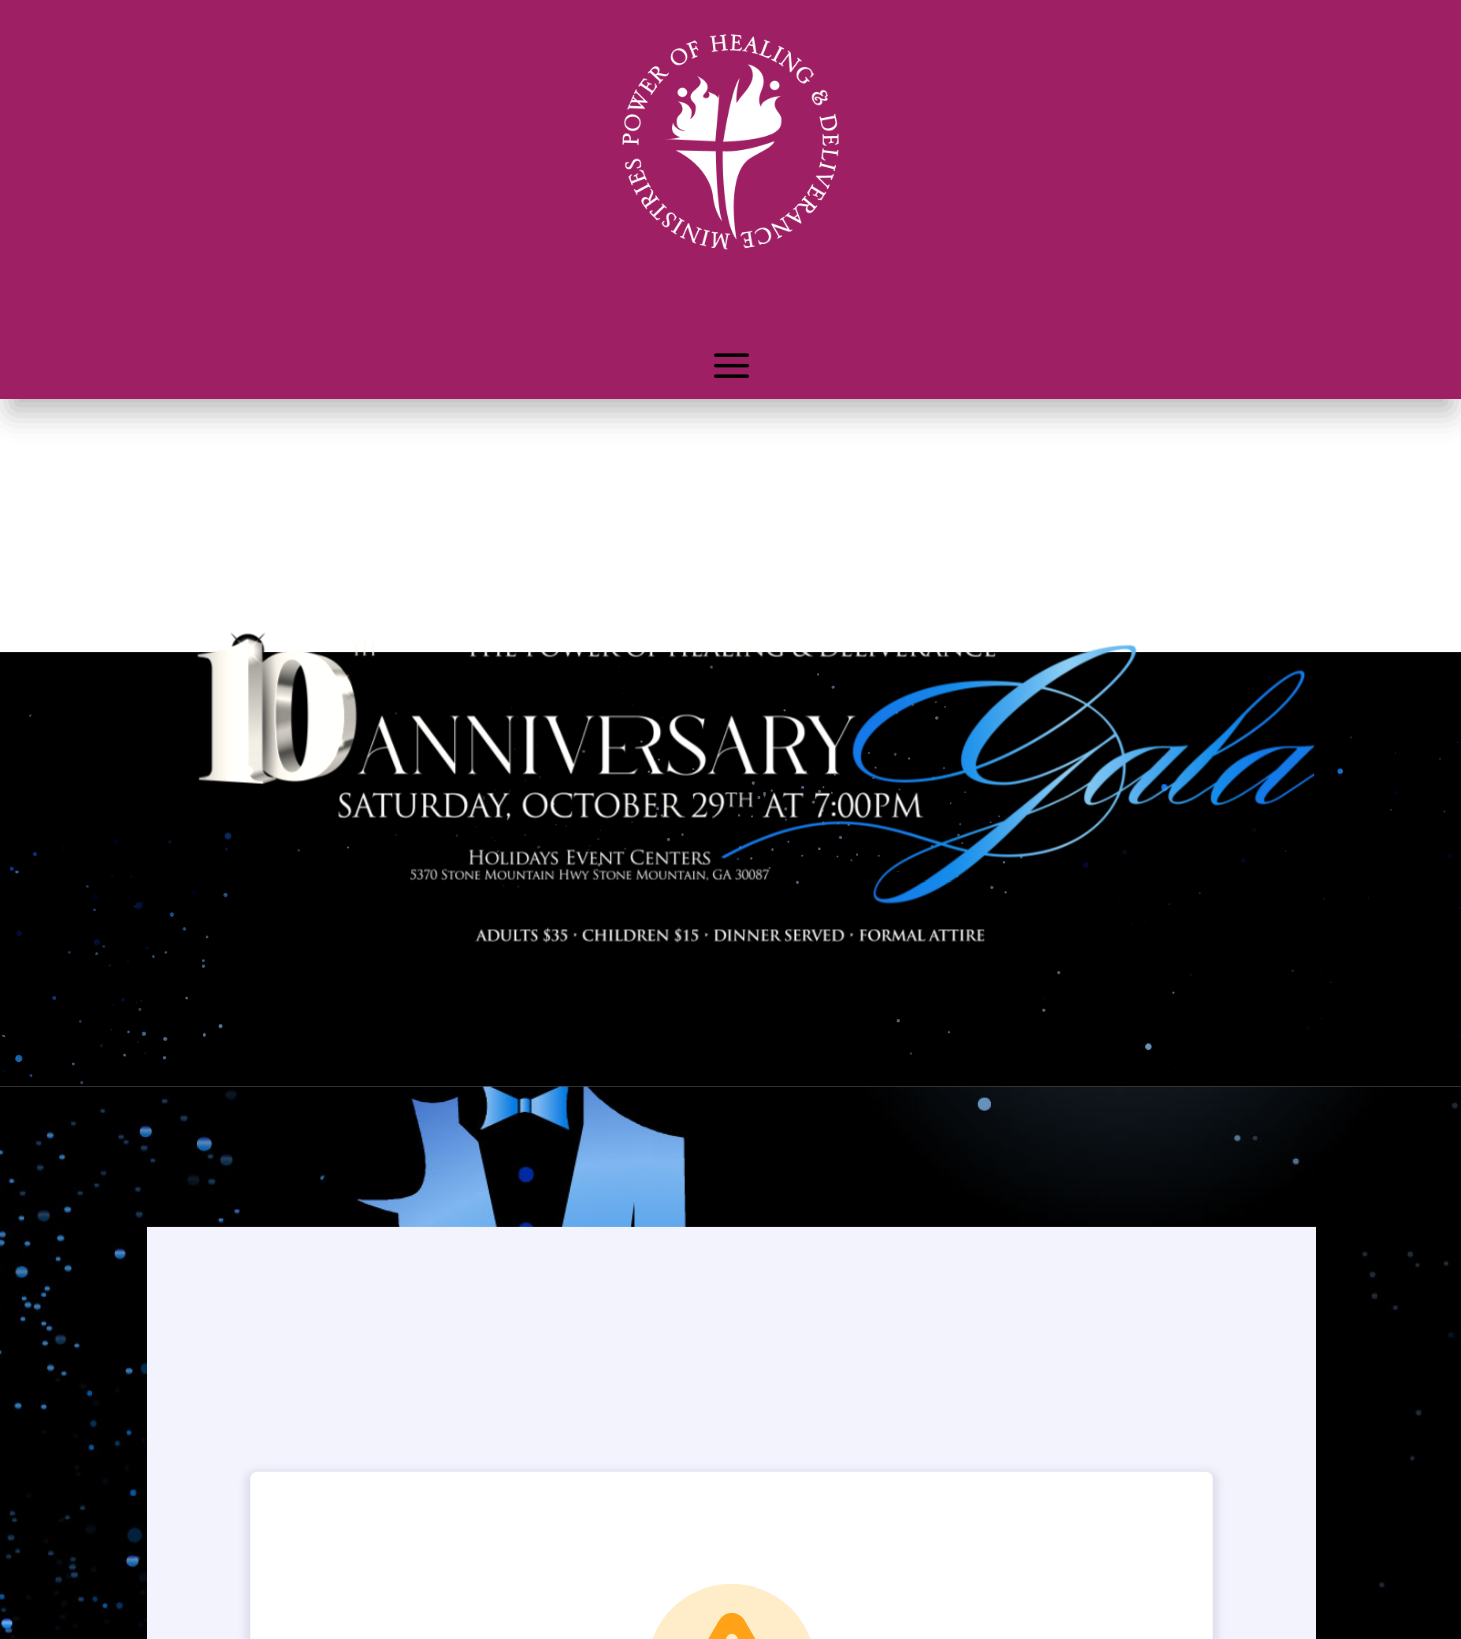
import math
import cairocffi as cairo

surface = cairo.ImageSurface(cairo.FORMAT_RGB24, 1461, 1639)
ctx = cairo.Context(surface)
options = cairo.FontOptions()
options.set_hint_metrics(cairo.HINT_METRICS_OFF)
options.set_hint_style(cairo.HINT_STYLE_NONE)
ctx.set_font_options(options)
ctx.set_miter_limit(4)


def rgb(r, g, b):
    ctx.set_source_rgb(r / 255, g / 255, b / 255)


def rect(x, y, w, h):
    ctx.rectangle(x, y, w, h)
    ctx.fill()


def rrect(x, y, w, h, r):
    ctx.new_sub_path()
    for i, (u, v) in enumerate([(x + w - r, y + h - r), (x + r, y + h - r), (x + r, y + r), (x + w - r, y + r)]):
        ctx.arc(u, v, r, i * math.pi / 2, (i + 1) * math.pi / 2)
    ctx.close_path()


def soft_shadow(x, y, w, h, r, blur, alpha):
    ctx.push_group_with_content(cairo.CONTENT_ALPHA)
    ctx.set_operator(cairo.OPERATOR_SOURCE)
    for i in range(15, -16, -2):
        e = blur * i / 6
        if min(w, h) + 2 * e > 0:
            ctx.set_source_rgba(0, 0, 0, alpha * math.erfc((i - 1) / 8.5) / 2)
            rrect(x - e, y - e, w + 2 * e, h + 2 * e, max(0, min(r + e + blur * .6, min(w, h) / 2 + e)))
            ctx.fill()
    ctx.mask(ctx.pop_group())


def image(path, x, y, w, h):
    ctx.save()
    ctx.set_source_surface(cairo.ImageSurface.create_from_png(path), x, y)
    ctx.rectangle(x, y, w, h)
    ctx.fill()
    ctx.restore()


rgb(255, 255, 255)
ctx.paint()
rgb(0, 0, 0)
soft_shadow(11, 32, 1440, 378, 0, 16, 0.3)
rgb(158, 31, 99)
rect(0, 0, 1461, 399)
image('image0.png', 622, 34, 217, 216)
image('image1.png', 714, 353, 35, 25)
image('image3.png', 0, 652, 1461, 435)
image('image2.png', 197, 632, 1118, 311)
image('image4.png', 0, 1086, 1461, 553)
image('image5.png', 147, 1226, 1169, 413)
surface.write_to_png('render.png')
